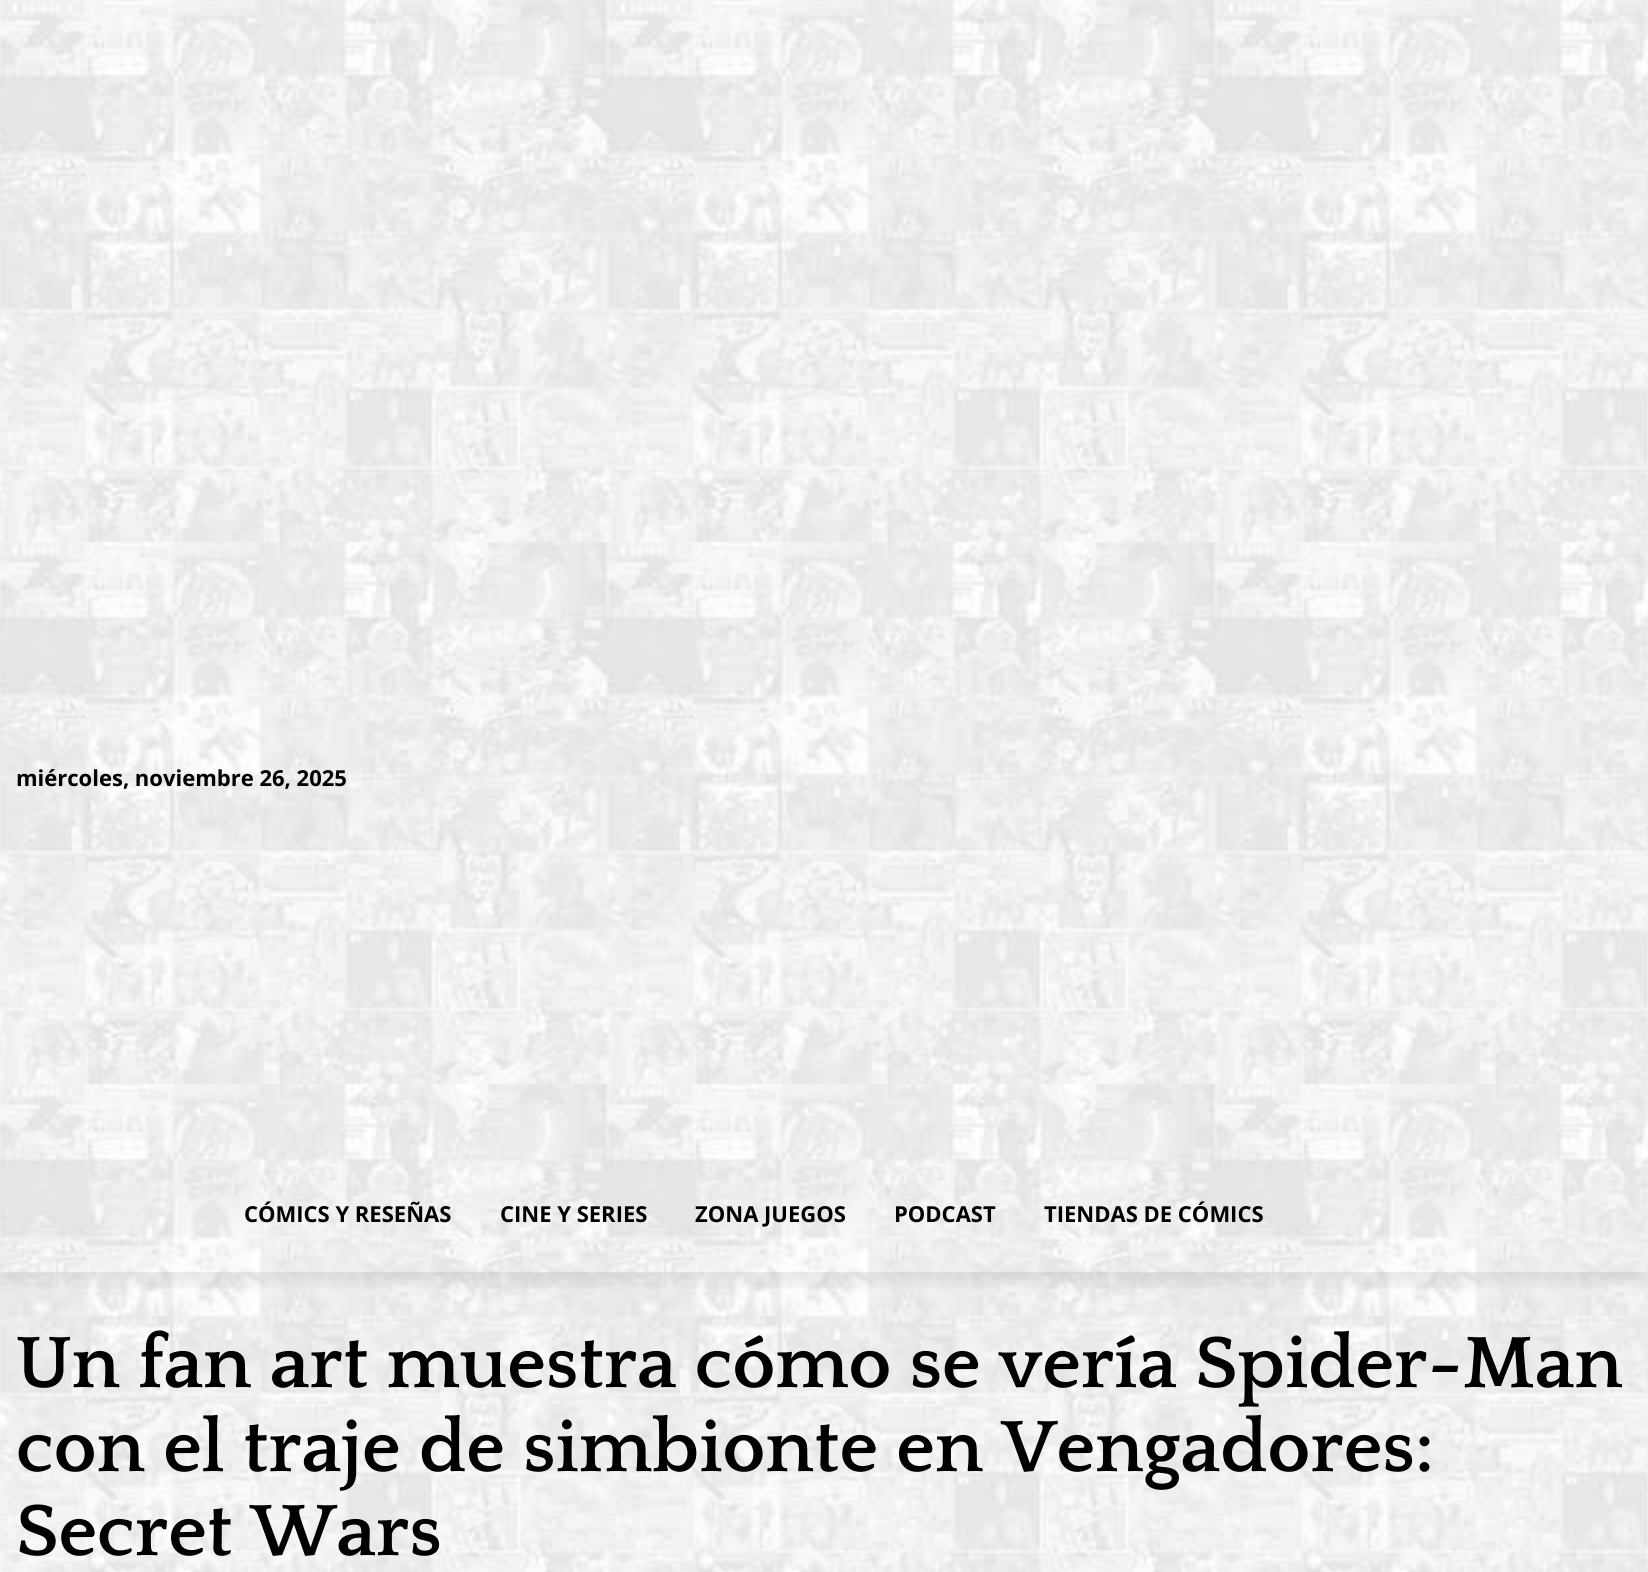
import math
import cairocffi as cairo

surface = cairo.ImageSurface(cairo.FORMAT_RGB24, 1648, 1572)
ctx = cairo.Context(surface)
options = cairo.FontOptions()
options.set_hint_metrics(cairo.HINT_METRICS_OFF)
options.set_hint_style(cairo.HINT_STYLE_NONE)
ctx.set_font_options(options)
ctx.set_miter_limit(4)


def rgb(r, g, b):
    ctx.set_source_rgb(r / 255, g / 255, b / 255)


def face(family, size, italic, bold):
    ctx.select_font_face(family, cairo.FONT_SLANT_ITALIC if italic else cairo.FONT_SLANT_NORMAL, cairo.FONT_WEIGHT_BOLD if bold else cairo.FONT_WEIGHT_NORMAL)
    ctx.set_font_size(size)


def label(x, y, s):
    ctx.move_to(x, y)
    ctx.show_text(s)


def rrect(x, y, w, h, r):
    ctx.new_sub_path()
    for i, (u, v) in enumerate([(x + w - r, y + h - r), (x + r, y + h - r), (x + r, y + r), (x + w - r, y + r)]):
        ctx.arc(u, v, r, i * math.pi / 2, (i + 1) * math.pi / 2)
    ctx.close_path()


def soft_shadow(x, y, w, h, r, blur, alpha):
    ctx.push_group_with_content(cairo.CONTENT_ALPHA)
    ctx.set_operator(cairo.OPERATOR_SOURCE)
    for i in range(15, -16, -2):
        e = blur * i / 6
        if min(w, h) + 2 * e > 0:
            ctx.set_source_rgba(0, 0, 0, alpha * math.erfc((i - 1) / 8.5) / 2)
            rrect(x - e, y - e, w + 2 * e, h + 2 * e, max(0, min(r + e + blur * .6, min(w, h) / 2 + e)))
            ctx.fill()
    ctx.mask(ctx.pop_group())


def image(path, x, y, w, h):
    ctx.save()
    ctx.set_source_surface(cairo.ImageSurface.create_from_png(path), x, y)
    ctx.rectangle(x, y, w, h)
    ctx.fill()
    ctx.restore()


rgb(255, 255, 255)
ctx.paint()
image('image0.png', 0, 0, 1648, 1572)
ctx.save()
ctx.rectangle(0, 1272, 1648, 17)
ctx.clip()
rgb(0, 0, 0)
soft_shadow(0, 762, 1648, 522, 0, 8, 0.08)
ctx.restore()
face('Open Sans', 22, 0, 1)
rgb(0, 0, 0)
label(16, 786, 'miércoles, noviembre 26, 2025')
label(244, 1222, 'CÓMICS Y RESEÑAS')
label(500, 1222, 'CINE Y SERIES')
label(695, 1222, 'ZONA JUEGOS')
label(894, 1222, 'PODCAST')
label(1044, 1222, 'TIENDAS DE CÓMICS')
face('Quattrocento', 76, 0, 1)
label(16, 1387, 'Un fan art muestra cómo se vería Spider-Man')
label(16, 1471, 'con el traje de simbionte en Vengadores:')
label(16, 1555, 'Secret Wars')
surface.write_to_png('render.png')
